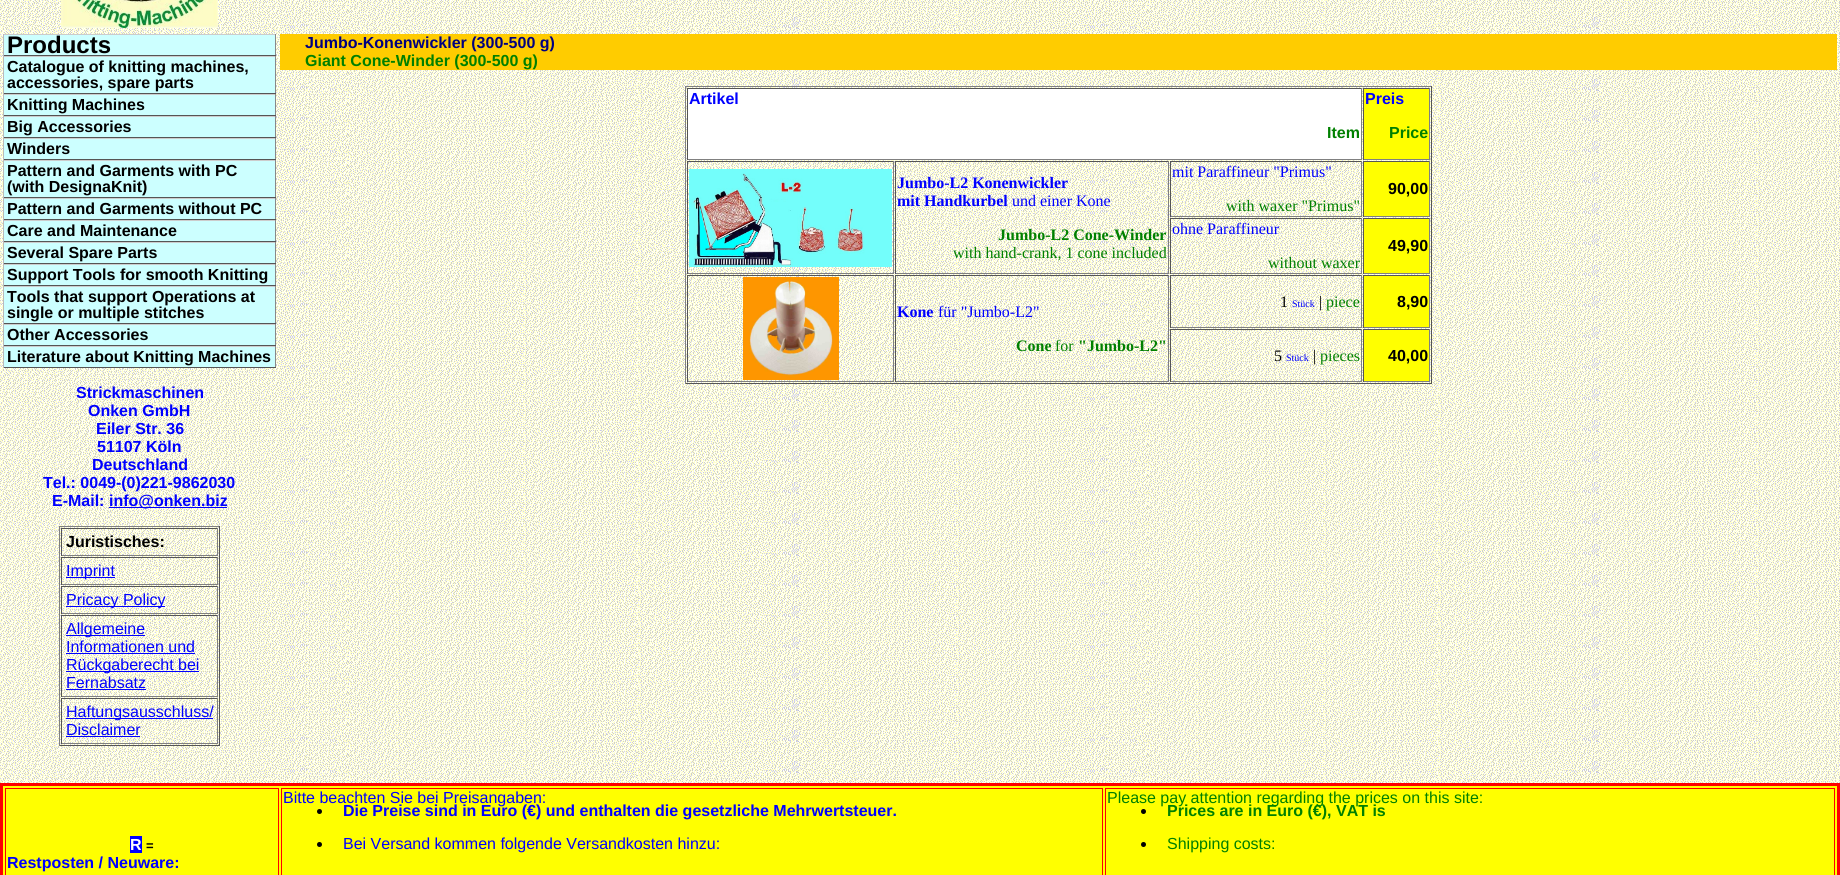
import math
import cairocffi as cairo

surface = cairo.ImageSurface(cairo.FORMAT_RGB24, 1840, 875)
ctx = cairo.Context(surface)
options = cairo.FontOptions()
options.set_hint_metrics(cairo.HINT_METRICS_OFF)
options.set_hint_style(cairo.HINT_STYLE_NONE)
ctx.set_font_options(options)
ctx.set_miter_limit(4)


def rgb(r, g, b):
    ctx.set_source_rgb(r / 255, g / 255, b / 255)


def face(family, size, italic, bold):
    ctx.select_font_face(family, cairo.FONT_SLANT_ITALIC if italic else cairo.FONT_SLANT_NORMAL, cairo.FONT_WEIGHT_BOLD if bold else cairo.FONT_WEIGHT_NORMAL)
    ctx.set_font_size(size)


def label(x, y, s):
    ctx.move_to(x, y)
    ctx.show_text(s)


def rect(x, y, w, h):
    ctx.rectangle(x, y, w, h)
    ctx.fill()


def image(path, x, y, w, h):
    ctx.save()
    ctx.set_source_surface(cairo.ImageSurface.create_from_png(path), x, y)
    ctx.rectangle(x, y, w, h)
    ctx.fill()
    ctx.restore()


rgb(255, 255, 255)
ctx.paint()
image('image0.png', 0, 0, 1840, 783)
image('image1.png', 61, 0, 157, 28)
rgb(204, 255, 255)
rect(4, 35, 271, 332)
rgb(204, 204, 204)
rect(3, 34, 273, 1)
rgb(136, 136, 136)
rect(275, 34, 1, 22)
rgb(85, 85, 85)
rect(3, 55, 273, 1)
rgb(187, 187, 187)
rect(3, 34, 1, 22)
face('Liberation Sans', 24, 0, 1)
rgb(0, 0, 0)
label(7, 53, 'Products')
rgb(204, 204, 204)
rect(3, 56, 273, 1)
rgb(136, 136, 136)
rect(275, 56, 1, 38)
rgb(85, 85, 85)
rect(3, 93, 273, 1)
rgb(187, 187, 187)
rect(3, 56, 1, 38)
face('Liberation Sans', 16, 0, 1)
rgb(0, 0, 0)
label(7, 72, 'Catalogue of knitting machines,')
label(7, 88, 'accessories, spare parts')
rgb(204, 204, 204)
rect(3, 94, 273, 1)
rgb(136, 136, 136)
rect(275, 94, 1, 22)
rgb(85, 85, 85)
rect(3, 115, 273, 1)
rgb(187, 187, 187)
rect(3, 94, 1, 22)
rgb(0, 0, 0)
label(7, 110, 'Knitting Machines')
rgb(204, 204, 204)
rect(3, 116, 273, 1)
rgb(136, 136, 136)
rect(275, 116, 1, 22)
rgb(85, 85, 85)
rect(3, 137, 273, 1)
rgb(187, 187, 187)
rect(3, 116, 1, 22)
rgb(0, 0, 0)
label(7, 132, 'Big Accessories')
rgb(204, 204, 204)
rect(3, 138, 273, 1)
rgb(136, 136, 136)
rect(275, 138, 1, 22)
rgb(85, 85, 85)
rect(3, 159, 273, 1)
rgb(187, 187, 187)
rect(3, 138, 1, 22)
rgb(0, 0, 0)
label(7, 154, 'Winders')
rgb(204, 204, 204)
rect(3, 160, 273, 1)
rgb(136, 136, 136)
rect(275, 160, 1, 38)
rgb(85, 85, 85)
rect(3, 197, 273, 1)
rgb(187, 187, 187)
rect(3, 160, 1, 38)
rgb(0, 0, 0)
label(7, 176, 'Pattern and Garments with PC')
label(7, 192, '(with DesignaKnit)')
rgb(204, 204, 204)
rect(3, 198, 273, 1)
rgb(136, 136, 136)
rect(275, 198, 1, 22)
rgb(85, 85, 85)
rect(3, 219, 273, 1)
rgb(187, 187, 187)
rect(3, 198, 1, 22)
rgb(0, 0, 0)
label(7, 214, 'Pattern and Garments without PC')
rgb(204, 204, 204)
rect(3, 220, 273, 1)
rgb(136, 136, 136)
rect(275, 220, 1, 22)
rgb(85, 85, 85)
rect(3, 241, 273, 1)
rgb(187, 187, 187)
rect(3, 220, 1, 22)
rgb(0, 0, 0)
label(7, 236, 'Care and Maintenance')
rgb(204, 204, 204)
rect(3, 242, 273, 1)
rgb(136, 136, 136)
rect(275, 242, 1, 22)
rgb(85, 85, 85)
rect(3, 263, 273, 1)
rgb(187, 187, 187)
rect(3, 242, 1, 22)
rgb(0, 0, 0)
label(7, 258, 'Several Spare Parts')
rgb(204, 204, 204)
rect(3, 264, 273, 1)
rgb(136, 136, 136)
rect(275, 264, 1, 22)
rgb(85, 85, 85)
rect(3, 285, 273, 1)
rgb(187, 187, 187)
rect(3, 264, 1, 22)
rgb(0, 0, 0)
label(7, 280, 'Support Tools for smooth Knitting')
rgb(204, 204, 204)
rect(3, 286, 273, 1)
rgb(136, 136, 136)
rect(275, 286, 1, 38)
rgb(85, 85, 85)
rect(3, 323, 273, 1)
rgb(187, 187, 187)
rect(3, 286, 1, 38)
rgb(0, 0, 0)
label(7, 302, 'Tools that support Operations at')
label(7, 318, 'single or multiple stitches')
rgb(204, 204, 204)
rect(3, 324, 273, 1)
rgb(136, 136, 136)
rect(275, 324, 1, 22)
rgb(85, 85, 85)
rect(3, 345, 273, 1)
rgb(187, 187, 187)
rect(3, 324, 1, 22)
rgb(0, 0, 0)
label(7, 340, 'Other Accessories')
rgb(204, 204, 204)
rect(3, 346, 273, 1)
rgb(136, 136, 136)
rect(275, 346, 1, 22)
rgb(85, 85, 85)
rect(3, 367, 273, 1)
rgb(187, 187, 187)
rect(3, 346, 1, 22)
rgb(0, 0, 0)
label(7, 362, 'Literature about Knitting Machines')
rgb(0, 0, 255)
label(76, 398, 'Strickmaschinen')
label(88, 416, 'Onken GmbH')
label(96, 434, 'Eiler Str. 36')
label(97, 452, '51107 Köln')
label(92, 470, 'Deutschland')
label(43, 488, 'Tel.: 0049-(0)221-9862030')
label(52, 506, 'E-Mail:')
rect(109, 507, 118, 1)
label(109, 506, 'info@onken.biz')
rgb(128, 128, 128)
rect(59, 526, 161, 1)
rgb(85, 85, 85)
rect(219, 526, 1, 220)
rect(59, 745, 161, 1)
rgb(128, 128, 128)
rect(59, 526, 1, 220)
rgb(85, 85, 85)
rect(61, 528, 157, 1)
rgb(128, 128, 128)
rect(217, 528, 1, 28)
rect(61, 555, 157, 1)
rgb(85, 85, 85)
rect(61, 528, 1, 28)
rgb(0, 0, 0)
label(66, 547, 'Juristisches:')
rgb(85, 85, 85)
rect(61, 557, 157, 1)
rgb(128, 128, 128)
rect(217, 557, 1, 28)
rect(61, 584, 157, 1)
rgb(85, 85, 85)
rect(61, 557, 1, 28)
rgb(0, 0, 255)
rect(66, 577, 49, 1)
face('Liberation Sans', 16, 0, 0)
label(66, 576, 'Imprint')
rgb(85, 85, 85)
rect(61, 586, 157, 1)
rgb(128, 128, 128)
rect(217, 586, 1, 28)
rect(61, 613, 157, 1)
rgb(85, 85, 85)
rect(61, 586, 1, 28)
rgb(0, 0, 255)
rect(66, 606, 99, 1)
label(66, 605, 'Pricacy Policy')
rgb(85, 85, 85)
rect(61, 615, 157, 1)
rgb(128, 128, 128)
rect(217, 615, 1, 82)
rect(61, 696, 157, 1)
rgb(85, 85, 85)
rect(61, 615, 1, 82)
rgb(0, 0, 255)
rect(66, 635, 79, 1)
label(66, 634, 'Allgemeine')
label(66, 652, 'Informationen und')
rect(66, 653, 129, 1)
rect(66, 671, 133, 1)
label(66, 670, 'Rückgaberecht bei')
label(66, 688, 'Fernabsatz')
rect(66, 689, 80, 1)
rgb(85, 85, 85)
rect(61, 698, 157, 1)
rgb(128, 128, 128)
rect(217, 698, 1, 46)
rect(61, 743, 157, 1)
rgb(85, 85, 85)
rect(61, 698, 1, 46)
rgb(0, 0, 255)
rect(66, 718, 147, 1)
label(66, 717, 'Haftungsausschluss/')
label(66, 735, 'Disclaimer')
rect(66, 736, 74, 1)
rgb(255, 204, 0)
rect(280, 34, 1557, 36)
face('Liberation Sans', 16, 0, 1)
rgb(0, 0, 128)
label(305, 48, 'Jumbo-Konenwickler (300-500 g)')
rgb(0, 128, 0)
label(305, 66, 'Giant Cone-Winder (300-500 g)')
rgb(128, 128, 128)
rect(685, 86, 747, 1)
rgb(85, 85, 85)
rect(1431, 86, 1, 298)
rect(685, 383, 747, 1)
rgb(128, 128, 128)
rect(685, 86, 1, 298)
rgb(255, 255, 255)
rect(688, 89, 673, 70)
rgb(85, 85, 85)
rect(687, 88, 675, 1)
rgb(128, 128, 128)
rect(1361, 88, 1, 72)
rect(687, 159, 675, 1)
rgb(85, 85, 85)
rect(687, 88, 1, 72)
rgb(0, 0, 255)
label(689, 104, 'Artikel')
rgb(0, 128, 0)
label(1327, 138, 'Item')
rgb(255, 255, 0)
rect(1364, 89, 65, 70)
rgb(85, 85, 85)
rect(1363, 88, 67, 1)
rgb(128, 128, 128)
rect(1429, 88, 1, 72)
rect(1363, 159, 67, 1)
rgb(85, 85, 85)
rect(1363, 88, 1, 72)
rgb(0, 0, 255)
label(1365, 104, 'Preis')
rgb(0, 128, 0)
label(1389, 138, 'Price')
rgb(85, 85, 85)
rect(687, 161, 207, 1)
rgb(128, 128, 128)
rect(893, 161, 1, 113)
rect(687, 273, 207, 1)
rgb(85, 85, 85)
rect(687, 161, 1, 113)
image('image2.png', 689, 169, 203, 98)
rect(895, 161, 274, 1)
rgb(128, 128, 128)
rect(1168, 161, 1, 113)
rect(895, 273, 274, 1)
rgb(85, 85, 85)
rect(895, 161, 1, 113)
face('Liberation Serif', 16, 0, 1)
rgb(0, 0, 255)
label(897, 188, 'Jumbo-L2 Konenwickler')
label(897, 206, 'mit Handkurbel')
face('Liberation Serif', 16, 0, 0)
label(1012, 206, 'und einer Kone')
face('Liberation Serif', 16, 0, 1)
rgb(0, 128, 0)
label(998, 240, 'Jumbo-L2 Cone-Winder')
face('Liberation Serif', 16, 0, 0)
label(953, 258, 'with hand-crank, 1 cone included')
rgb(85, 85, 85)
rect(1170, 161, 192, 1)
rgb(128, 128, 128)
rect(1361, 161, 1, 56)
rect(1170, 216, 192, 1)
rgb(85, 85, 85)
rect(1170, 161, 1, 56)
rgb(0, 0, 255)
label(1172, 177, 'mit Paraffineur "Primus"')
rgb(0, 128, 0)
label(1226, 211, 'with waxer "Primus"')
rgb(255, 255, 0)
rect(1364, 162, 65, 54)
rgb(85, 85, 85)
rect(1363, 161, 67, 1)
rgb(128, 128, 128)
rect(1429, 161, 1, 56)
rect(1363, 216, 67, 1)
rgb(85, 85, 85)
rect(1363, 161, 1, 56)
face('Liberation Sans', 16, 0, 1)
rgb(0, 0, 0)
label(1388, 194, '90,00')
rgb(85, 85, 85)
rect(1170, 218, 192, 1)
rgb(128, 128, 128)
rect(1361, 218, 1, 56)
rect(1170, 273, 192, 1)
rgb(85, 85, 85)
rect(1170, 218, 1, 56)
face('Liberation Serif', 16, 0, 0)
rgb(0, 0, 255)
label(1172, 234, 'ohne Paraffineur')
rgb(0, 128, 0)
label(1268, 268, 'without waxer')
rgb(255, 255, 0)
rect(1364, 219, 65, 54)
rgb(85, 85, 85)
rect(1363, 218, 67, 1)
rgb(128, 128, 128)
rect(1429, 218, 1, 56)
rect(1363, 273, 67, 1)
rgb(85, 85, 85)
rect(1363, 218, 1, 56)
face('Liberation Sans', 16, 0, 1)
rgb(0, 0, 0)
label(1388, 251, '49,90')
rgb(85, 85, 85)
rect(687, 275, 207, 1)
rgb(128, 128, 128)
rect(893, 275, 1, 107)
rect(687, 381, 207, 1)
rgb(85, 85, 85)
rect(687, 275, 1, 107)
image('image3.png', 743, 277, 96, 103)
rect(1170, 275, 192, 1)
rgb(128, 128, 128)
rect(1361, 275, 1, 53)
rect(1170, 327, 192, 1)
rgb(85, 85, 85)
rect(1170, 275, 1, 53)
face('Liberation Serif', 16, 0, 0)
rgb(0, 0, 0)
label(1280, 307, '1')
face('Liberation Serif', 10, 0, 0)
rgb(0, 0, 255)
label(1292, 307, 'Stück')
face('Liberation Serif', 16, 0, 0)
rgb(0, 0, 0)
label(1319, 307, '|')
rgb(0, 128, 0)
label(1326, 307, 'piece')
rgb(255, 255, 0)
rect(1364, 276, 65, 51)
rgb(85, 85, 85)
rect(1363, 275, 67, 1)
rgb(128, 128, 128)
rect(1429, 275, 1, 53)
rect(1363, 327, 67, 1)
rgb(85, 85, 85)
rect(1363, 275, 1, 53)
face('Liberation Sans', 16, 0, 1)
rgb(0, 0, 0)
label(1397, 307, '8,90')
rgb(85, 85, 85)
rect(895, 275, 274, 1)
rgb(128, 128, 128)
rect(1168, 275, 1, 107)
rect(895, 381, 274, 1)
rgb(85, 85, 85)
rect(895, 275, 1, 107)
face('Liberation Serif', 16, 0, 1)
rgb(0, 0, 255)
label(897, 317, 'Kone')
face('Liberation Serif', 16, 0, 0)
label(938, 317, 'für "Jumbo-L2"')
face('Liberation Serif', 16, 0, 1)
rgb(0, 128, 0)
label(1016, 351, 'Cone')
face('Liberation Serif', 16, 0, 0)
label(1055, 351, 'for')
face('Liberation Serif', 16, 0, 1)
label(1078, 351, '"Jumbo-L2"')
rgb(85, 85, 85)
rect(1170, 329, 192, 1)
rgb(128, 128, 128)
rect(1361, 329, 1, 53)
rect(1170, 381, 192, 1)
rgb(85, 85, 85)
rect(1170, 329, 1, 53)
face('Liberation Serif', 16, 0, 0)
rgb(0, 0, 0)
label(1274, 361, '5')
face('Liberation Serif', 10, 0, 0)
rgb(0, 0, 255)
label(1286, 361, 'Stück')
face('Liberation Serif', 16, 0, 0)
rgb(0, 0, 0)
label(1313, 361, '|')
rgb(0, 128, 0)
label(1320, 361, 'pieces')
rgb(255, 255, 0)
rect(1364, 330, 65, 51)
rgb(85, 85, 85)
rect(1363, 329, 67, 1)
rgb(128, 128, 128)
rect(1429, 329, 1, 53)
rect(1363, 381, 67, 1)
rgb(85, 85, 85)
rect(1363, 329, 1, 53)
face('Liberation Sans', 16, 0, 1)
rgb(0, 0, 0)
label(1388, 361, '40,00')
rgb(255, 255, 0)
ctx.rectangle(1.5, 784.5, 1837, 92)
ctx.fill_preserve()
rgb(255, 0, 0)
ctx.set_line_width(3)
ctx.stroke()
ctx.rectangle(5.5, 788.5, 273, 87)
ctx.set_line_width(1)
ctx.stroke()
rgb(0, 0, 255)
rect(130, 836, 12, 17)
rgb(255, 255, 255)
label(130, 850, 'R')
face('Liberation Sans', 13, 0, 1)
rgb(0, 0, 0)
label(146, 850, '=')
face('Liberation Sans', 16, 0, 1)
rgb(0, 0, 255)
label(7, 868, 'Restposten / Neuware:')
ctx.rectangle(281.5, 788.5, 821, 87)
rgb(255, 0, 0)
ctx.stroke()
face('Liberation Sans', 16, 0, 0)
rgb(0, 0, 255)
label(283, 803, 'Bitte beachten Sie bei Preisangaben:')
rgb(0, 0, 0)
ctx.new_path()
ctx.arc(319.5, 811.5, 2.5, 0, 2 * math.pi)
ctx.fill()
face('Liberation Sans', 16, 0, 1)
rgb(0, 0, 255)
label(343, 816, 'Die Preise sind in Euro (€) und enthalten die gesetzliche Mehrwertsteuer.')
rgb(0, 0, 0)
ctx.new_path()
ctx.arc(319.5, 844.5, 2.5, 0, 2 * math.pi)
ctx.fill()
face('Liberation Sans', 16, 0, 0)
rgb(0, 0, 255)
label(343, 849, 'Bei Versand kommen folgende Versandkosten hinzu:')
ctx.rectangle(1105.5, 788.5, 729, 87)
rgb(255, 0, 0)
ctx.stroke()
rgb(0, 128, 0)
label(1107, 803, 'Please pay attention regarding the prices on this site:')
rgb(0, 0, 0)
ctx.new_path()
ctx.arc(1143.5, 811.5, 2.5, 0, 2 * math.pi)
ctx.fill()
face('Liberation Sans', 16, 0, 1)
rgb(0, 128, 0)
label(1167, 816, 'Prices are in Euro (€), VAT is')
rgb(0, 0, 0)
ctx.new_path()
ctx.arc(1143.5, 844.5, 2.5, 0, 2 * math.pi)
ctx.fill()
face('Liberation Sans', 16, 0, 0)
rgb(0, 128, 0)
label(1167, 849, 'Shipping costs:')
surface.write_to_png('render.png')
